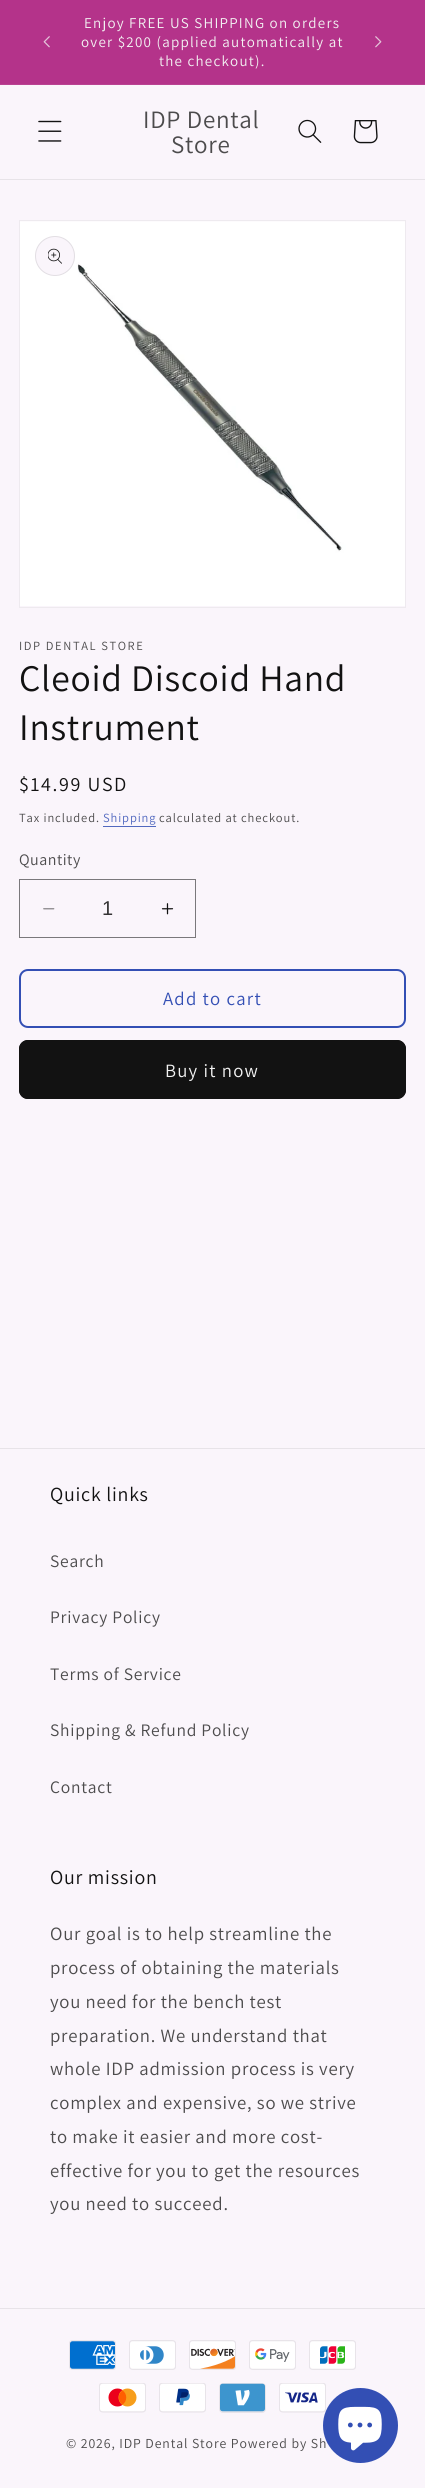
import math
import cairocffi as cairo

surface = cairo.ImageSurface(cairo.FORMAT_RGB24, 425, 2488)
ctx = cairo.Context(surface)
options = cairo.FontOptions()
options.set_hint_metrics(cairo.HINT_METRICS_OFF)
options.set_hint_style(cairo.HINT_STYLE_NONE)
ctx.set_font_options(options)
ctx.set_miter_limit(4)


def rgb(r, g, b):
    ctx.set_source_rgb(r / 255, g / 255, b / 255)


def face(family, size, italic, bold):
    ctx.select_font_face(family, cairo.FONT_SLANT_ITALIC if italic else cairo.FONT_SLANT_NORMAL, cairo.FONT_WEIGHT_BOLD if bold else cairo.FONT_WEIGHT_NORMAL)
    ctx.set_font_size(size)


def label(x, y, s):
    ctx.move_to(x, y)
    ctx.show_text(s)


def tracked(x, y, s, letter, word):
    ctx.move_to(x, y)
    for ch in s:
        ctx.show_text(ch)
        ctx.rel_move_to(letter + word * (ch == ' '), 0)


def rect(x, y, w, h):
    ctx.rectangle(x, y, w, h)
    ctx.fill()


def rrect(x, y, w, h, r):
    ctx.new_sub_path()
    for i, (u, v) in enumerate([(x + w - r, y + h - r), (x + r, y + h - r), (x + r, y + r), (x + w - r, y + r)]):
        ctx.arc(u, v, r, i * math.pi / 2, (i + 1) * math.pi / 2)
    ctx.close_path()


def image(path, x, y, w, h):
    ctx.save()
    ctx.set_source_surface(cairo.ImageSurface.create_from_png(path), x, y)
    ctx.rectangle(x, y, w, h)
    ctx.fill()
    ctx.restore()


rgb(250, 245, 251)
ctx.paint()
rgb(180, 51, 138)
rect(0, 0, 425, 84)
rgb(185, 66, 146)
rect(0, 84, 425, 1)
image('image0.png', 43, 36, 7, 12)
face('Assistant', 15, 0, 0)
rgb(243, 243, 243)
tracked(84, 28, 'Enjoy FREE US SHIPPING on orders', 1.25, 0)
tracked(81, 47, 'over $200 (applied automatically at', 1.25, 0)
tracked(159, 66, 'the checkout).', 1.25, 0)
image('image1.png', 375, 36, 7, 12)
rgb(231, 227, 232)
rect(0, 179, 425, 1)
image('image2.png', 38, 120, 24, 22)
face('Assistant', 25, 0, 0)
rgb(76, 75, 76)
tracked(143, 128, 'IDP Dental', 0.75, 0)
tracked(171, 153, 'Store', 0.75, 0)
image('image3.png', 298, 119, 24, 24)
image('image4.png', 353, 120, 25, 24)
ctx.rectangle(19.5, 220.5, 386, 387)
rgb(238, 234, 239)
ctx.set_line_width(1)
ctx.stroke()
image('image5.png', 20, 221, 385, 385)
rgb(250, 245, 251)
ctx.arc(55, 256, 20, 0, 2 * math.pi)
ctx.fill()
ctx.arc(55, 256, 19.5, 0, 2 * math.pi)
ctx.set_source_rgba(0.071, 0.071, 0.071, 0.1)
ctx.stroke()
image('image6.png', 48, 248, 14, 16)
face('Assistant', 12.5, 0, 0)
rgb(76, 75, 76)
tracked(19, 650, 'IDP DENTAL STORE', 1.6, 0)
face('Assistant', 37.5, 0, 0)
rgb(18, 18, 18)
tracked(19, 691, 'Cleoid Discoid Hand', 0.75, 0)
tracked(19, 740, 'Instrument', 0.75, 0)
face('Assistant', 20, 0, 0)
tracked(19, 791, '$14.99 USD', 1.6, 0)
face('Assistant', 12.5, 0, 0)
rgb(76, 75, 76)
tracked(19, 822, 'Tax included.', 0.9, 0)
rgb(81, 104, 191)
tracked(103, 822, 'Shipping', 0.9, 0)
rect(103, 826, 53, 1)
rgb(76, 75, 76)
tracked(159, 822, 'calculated at checkout.', 0.9, 0)
face('Assistant', 16, 0, 0)
tracked(19, 865, 'Quantity', 0.5, 0)
image('image7.png', 43, 908, 12, 2)
image('image8.png', 161, 903, 13, 12)
ctx.rectangle(19.5, 879.5, 176, 58)
rgb(122, 120, 123)
ctx.stroke()
face('Liberation Sans', 20, 0, 0)
rgb(53, 52, 53)
label(102, 915, '1')
rrect(20, 970, 385, 57, 8)
rgb(51, 79, 180)
ctx.set_line_width(2)
ctx.stroke()
face('Assistant', 18.75, 0, 0)
tracked(163, 1005, 'Add to cart', 1.25, 0)
rgb(18, 18, 18)
rrect(19, 1040, 387, 59, 9)
ctx.fill()
rrect(19.5, 1040.5, 386, 58, 8.5)
ctx.set_line_width(1)
ctx.stroke()
rgb(243, 243, 243)
tracked(165, 1077, 'Buy it now', 1.25, 0)
rgb(231, 227, 232)
rect(0, 1448, 425, 1)
face('Assistant', 20, 0, 0)
rgb(18, 18, 18)
tracked(50, 1501, 'Quick links', 0.75, 0)
face('Assistant', 17.5, 0, 0)
rgb(76, 75, 76)
tracked(50, 1567, 'Search', 0.75, 0)
tracked(50, 1623, 'Privacy Policy', 0.75, 0)
tracked(50, 1680, 'Terms of Service', 0.75, 0)
tracked(50, 1736, 'Shipping & Refund Policy', 0.75, 0)
tracked(50, 1793, 'Contact', 0.75, 0)
face('Assistant', 20, 0, 0)
rgb(18, 18, 18)
tracked(50, 1884, 'Our mission', 0.75, 0)
face('Assistant', 18.75, 0, 0)
rgb(76, 75, 76)
tracked(50, 1940, 'Our goal is to help streamline the', 0.75, 0)
tracked(50, 1974, 'process of obtaining the materials', 0.75, 0)
tracked(50, 2008, 'you need for the bench test', 0.75, 0)
tracked(50, 2042, 'preparation. We understand that', 0.75, 0)
tracked(50, 2075, 'whole IDP admission process is very', 0.75, 0)
tracked(50, 2109, 'complex and expensive, so we strive', 0.75, 0)
tracked(50, 2143, 'to make it easier and more cost-', 0.75, 0)
tracked(50, 2177, 'effective for you to get the resources', 0.75, 0)
tracked(50, 2210, 'you need to succeed.', 0.75, 0)
rgb(231, 227, 232)
rect(0, 2308, 425, 1)
image('image9.png', 69, 2340, 47, 30)
image('image10.png', 129, 2340, 47, 30)
image('image11.png', 189, 2340, 47, 30)
image('image12.png', 249, 2340, 47, 30)
image('image13.png', 309, 2340, 47, 30)
image('image14.png', 99, 2383, 47, 30)
image('image15.png', 159, 2383, 47, 30)
image('image16.png', 219, 2383, 47, 30)
image('image17.png', 279, 2383, 47, 30)
face('Assistant', 13.75, 0, 0)
rgb(76, 75, 76)
tracked(66, 2448, '© 2026, IDP Dental Store Powered by Sh', 0.9, 0)
rgb(51, 79, 180)
ctx.new_path()
ctx.arc(360.5, 2425.5, 37.5, 0, 2 * math.pi)
ctx.fill()
image('image18.png', 338, 2406, 44, 45)
surface.write_to_png('render.png')
